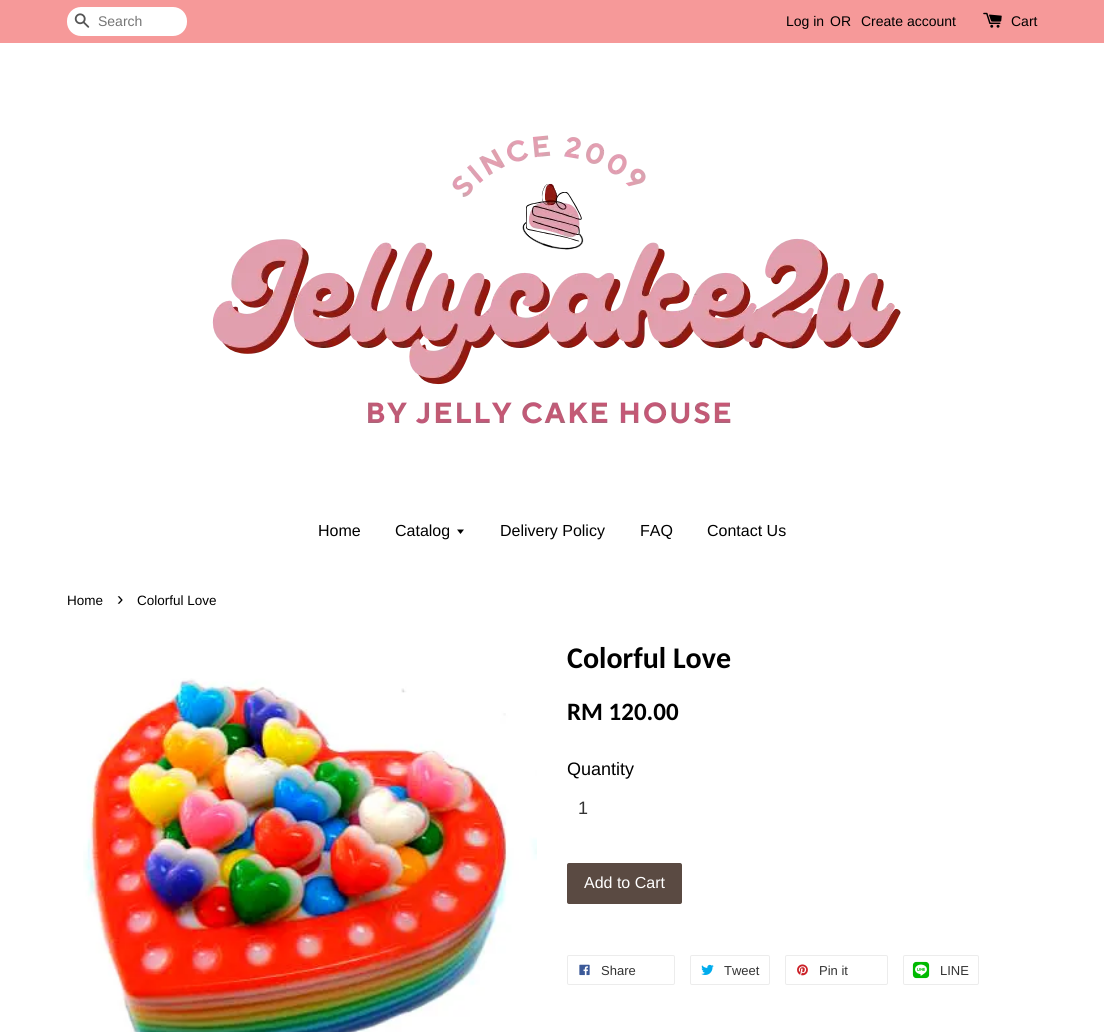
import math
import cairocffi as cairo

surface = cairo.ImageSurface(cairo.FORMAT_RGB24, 1104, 1032)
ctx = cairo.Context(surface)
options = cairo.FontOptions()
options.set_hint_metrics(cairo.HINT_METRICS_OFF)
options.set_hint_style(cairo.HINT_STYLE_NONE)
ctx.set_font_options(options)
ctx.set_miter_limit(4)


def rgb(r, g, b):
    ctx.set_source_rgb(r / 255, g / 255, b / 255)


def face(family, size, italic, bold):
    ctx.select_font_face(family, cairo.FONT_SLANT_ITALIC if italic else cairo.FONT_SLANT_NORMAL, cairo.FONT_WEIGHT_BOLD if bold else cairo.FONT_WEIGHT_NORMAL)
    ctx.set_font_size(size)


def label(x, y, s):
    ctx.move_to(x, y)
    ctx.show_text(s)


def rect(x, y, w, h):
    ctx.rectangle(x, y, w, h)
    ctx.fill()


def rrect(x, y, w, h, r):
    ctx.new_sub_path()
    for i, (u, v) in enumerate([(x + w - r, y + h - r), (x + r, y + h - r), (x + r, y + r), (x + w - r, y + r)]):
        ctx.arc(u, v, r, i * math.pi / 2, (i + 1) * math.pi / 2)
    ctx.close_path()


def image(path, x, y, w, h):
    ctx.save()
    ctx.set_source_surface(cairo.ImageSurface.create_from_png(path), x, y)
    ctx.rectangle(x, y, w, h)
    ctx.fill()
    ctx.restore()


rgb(255, 255, 255)
ctx.paint()
rgb(246, 153, 153)
rect(0, 0, 1104, 43)
rgb(255, 255, 255)
rrect(67, 7, 120, 29, 14)
ctx.fill()
image('image0.png', 74, 13, 16, 15)
face('Liberation Sans', 14, 0, 0)
rgb(117, 117, 117)
label(98, 26, 'Search')
rgb(0, 0, 0)
label(786, 26, 'Log in')
label(830, 26, 'OR')
label(861, 26, 'Create account')
image('image1.png', 983, 12, 19, 16)
label(1011, 26, 'Cart')
image('image2.png', 212, 135, 689, 289)
face('Liberation Sans', 16, 0, 0)
label(318, 536, 'Home')
label(395, 536, 'Catalog')
ctx.new_path()
ctx.move_to(457, 529.5)
ctx.line_to(460.5, 534)
ctx.line_to(464, 529.5)
ctx.close_path()
ctx.fill()
label(500, 536, 'Delivery Policy')
label(640, 536, 'FAQ')
label(707, 536, 'Contact Us')
face('Liberation Sans', 13.5, 0, 0)
label(67, 605, 'Home')
face('Liberation Sans', 19, 0, 0)
label(117, 605, '›')
face('Liberation Sans', 13.5, 0, 0)
label(137, 605, 'Colorful Love')
image('image3.png', 83, 678, 454, 354)
face('Carlito', 30, 0, 1)
label(567, 668, 'Colorful Love')
face('Carlito', 25, 0, 1)
label(567, 720, 'RM 120.00')
face('Liberation Sans', 18, 0, 0)
label(567, 775, 'Quantity')
rgb(51, 51, 51)
label(578, 814, '1')
rgb(90, 74, 66)
rrect(567, 863, 115, 41, 2)
ctx.fill()
face('Liberation Sans', 16, 0, 0)
rgb(255, 255, 255)
label(584, 888, 'Add to Cart')
rrect(567.5, 955.5, 107, 29, 1.5)
rgb(236, 236, 236)
ctx.set_line_width(1)
ctx.stroke()
image('image4.png', 579, 964, 11, 12)
face('Liberation Sans', 13, 0, 0)
rgb(51, 51, 51)
label(601, 975, 'Share')
rrect(690.5, 955.5, 79, 29, 1.5)
rgb(236, 236, 236)
ctx.stroke()
image('image5.png', 701, 964, 13, 11)
rgb(51, 51, 51)
label(724, 975, 'Tweet')
rrect(785.5, 955.5, 102, 29, 1.5)
rgb(236, 236, 236)
ctx.stroke()
image('image6.png', 797, 964, 11, 12)
rgb(51, 51, 51)
label(819, 975, 'Pin it')
rrect(903.5, 955.5, 75, 29, 1.5)
rgb(236, 236, 236)
ctx.stroke()
image('image7.png', 912, 961, 18, 18)
rgb(51, 51, 51)
label(940, 975, 'LINE')
surface.write_to_png('render.png')
